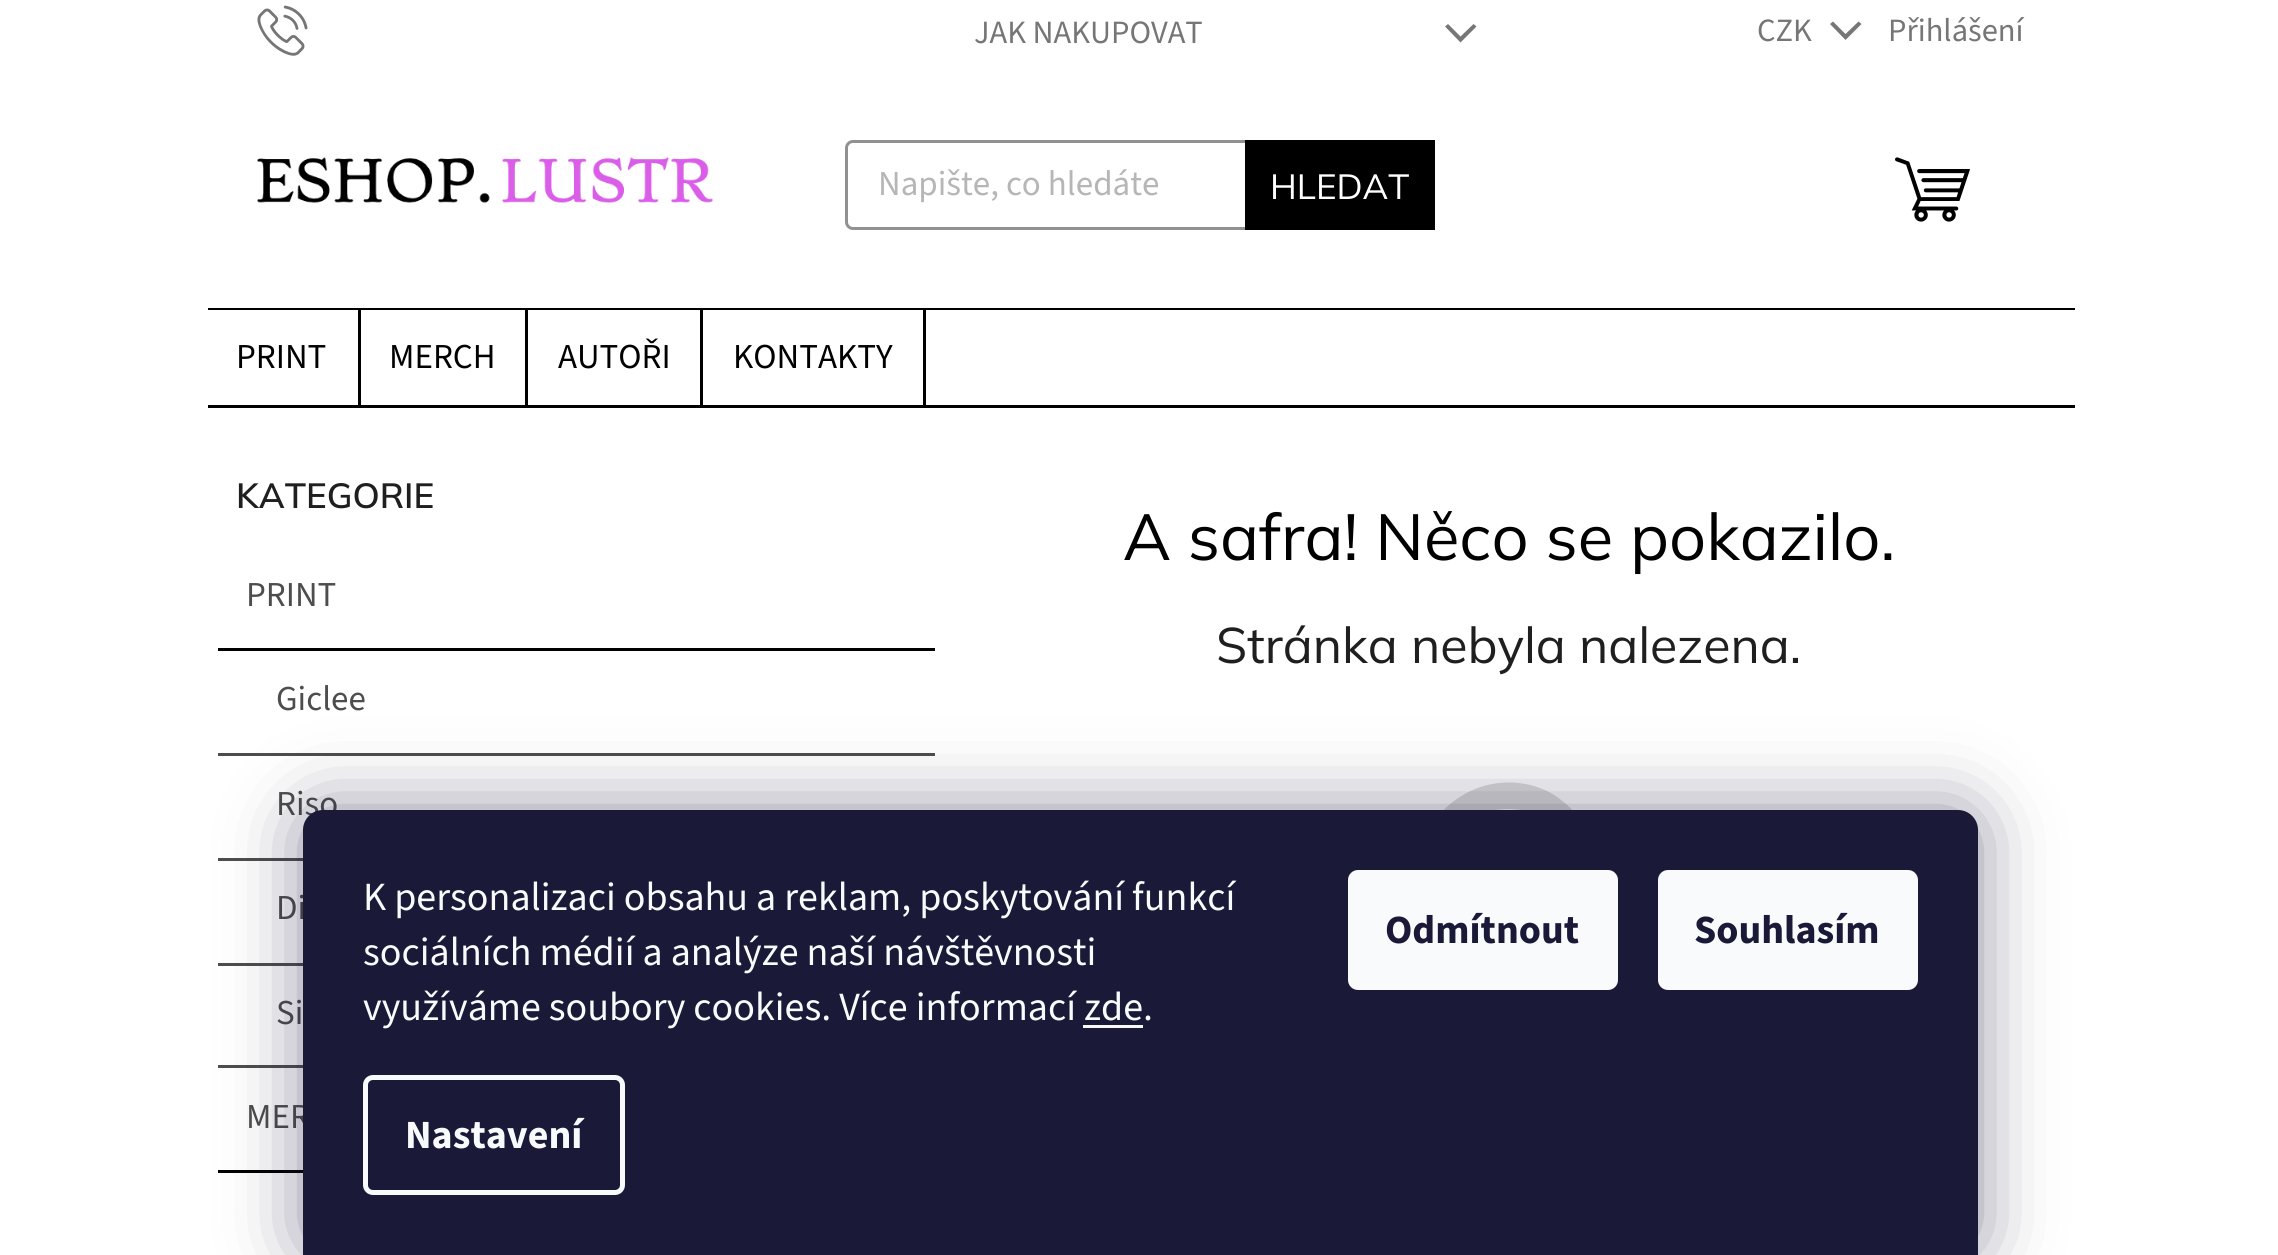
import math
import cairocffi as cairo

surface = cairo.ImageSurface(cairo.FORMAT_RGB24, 2278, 1255)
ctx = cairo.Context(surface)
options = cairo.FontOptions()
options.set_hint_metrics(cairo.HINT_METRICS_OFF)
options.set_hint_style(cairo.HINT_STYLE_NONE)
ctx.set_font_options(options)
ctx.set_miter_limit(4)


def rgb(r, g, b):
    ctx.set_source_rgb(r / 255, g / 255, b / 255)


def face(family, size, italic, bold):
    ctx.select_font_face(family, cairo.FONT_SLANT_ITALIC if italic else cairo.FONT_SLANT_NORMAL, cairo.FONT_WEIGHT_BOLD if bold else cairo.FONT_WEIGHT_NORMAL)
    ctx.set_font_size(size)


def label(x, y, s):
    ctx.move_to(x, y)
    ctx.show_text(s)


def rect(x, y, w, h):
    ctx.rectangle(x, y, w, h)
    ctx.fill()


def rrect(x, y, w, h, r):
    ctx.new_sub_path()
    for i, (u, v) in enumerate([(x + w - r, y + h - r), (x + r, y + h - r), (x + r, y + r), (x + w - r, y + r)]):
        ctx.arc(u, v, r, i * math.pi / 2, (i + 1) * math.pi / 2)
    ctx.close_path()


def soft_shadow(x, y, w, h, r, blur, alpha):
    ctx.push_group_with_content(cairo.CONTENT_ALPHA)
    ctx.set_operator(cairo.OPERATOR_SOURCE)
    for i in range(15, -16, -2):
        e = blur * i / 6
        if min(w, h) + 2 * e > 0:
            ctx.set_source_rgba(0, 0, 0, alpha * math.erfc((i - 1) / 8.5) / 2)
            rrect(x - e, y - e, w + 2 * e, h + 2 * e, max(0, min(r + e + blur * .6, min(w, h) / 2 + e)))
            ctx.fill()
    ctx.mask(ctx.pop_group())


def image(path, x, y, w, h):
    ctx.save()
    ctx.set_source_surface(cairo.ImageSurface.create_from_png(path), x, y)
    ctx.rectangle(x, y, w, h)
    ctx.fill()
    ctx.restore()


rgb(255, 255, 255)
ctx.paint()
image('image0.png', 257, 5, 51, 51)
face('Source Sans 3', 32.5, 0, 0)
rgb(118, 118, 118)
label(974, 43, 'JAK NAKUPOVAT')
ctx.new_path()
ctx.move_to(1445, 26.5)
ctx.line_to(1448, 24)
ctx.line_to(1460.5, 36.5)
ctx.line_to(1473.5, 24)
ctx.line_to(1476.5, 26.5)
ctx.line_to(1460.5, 42.5)
ctx.close_path()
ctx.fill()
label(1757, 41, 'CZK')
ctx.new_path()
ctx.move_to(1830, 24)
ctx.line_to(1833, 21.5)
ctx.line_to(1845.5, 34)
ctx.line_to(1858.5, 21.5)
ctx.line_to(1861.5, 24)
ctx.line_to(1845.5, 40)
ctx.close_path()
ctx.fill()
label(1888, 41, 'Přihlášení')
image('image1.png', 257, 157, 456, 46)
rrect(846.5, 141.5, 587, 87, 6.5)
rgb(145, 145, 145)
ctx.set_line_width(3)
ctx.stroke()
face('Source Sans 3', 35, 0, 0)
rgb(182, 182, 182)
label(878, 195, 'Napište, co hledáte')
rgb(0, 0, 0)
rect(1245, 140, 190, 90)
face('Mulish', 35, 0, 0)
rgb(255, 255, 255)
label(1270, 199, 'HLEDAT')
image('image2.png', 1895, 157, 75, 65)
rgb(0, 0, 0)
rect(208, 308, 1867, 2)
rect(208, 405, 1867, 3)
rect(358, 310, 3, 95)
face('Source Sans 3', 35, 0, 0)
label(236, 368, 'PRINT')
rect(525, 310, 3, 95)
label(389, 368, 'MERCH')
rect(700, 310, 3, 95)
label(558, 368, 'AUTOŘI')
rect(923, 310, 3, 95)
label(733, 368, 'KONTAKTY')
face('Mulish SemiBold', 35, 0, 0)
rgb(31, 31, 31)
label(236, 508, 'KATEGORIE')
rgb(0, 0, 0)
rect(218, 648, 717, 3)
face('Source Sans 3', 35, 0, 0)
rgb(77, 77, 77)
label(246, 606, 'PRINT')
rect(218, 753, 717, 3)
label(276, 710, 'Giclee')
rect(218, 858, 85, 3)
label(276, 815, 'Riso')
rect(218, 963, 85, 3)
label(276, 919, 'Di')
rect(218, 1065, 85, 3)
label(276, 1024, 'Si')
rgb(0, 0, 0)
rect(218, 1170, 85, 3)
rgb(77, 77, 77)
label(246, 1128, 'MER')
face('Mulish', 65, 0, 0)
rgb(0, 0, 0)
label(1123, 560, 'A safra! Něco se pokazilo.')
face('Mulish', 50, 0, 0)
rgb(31, 31, 31)
label(1216, 663, 'Stránka nebyla nalezena.')
rgb(218, 218, 218)
ctx.new_path()
ctx.move_to(1571, 873)
ctx.curve_to(1571, 861, 1568, 848, 1561, 838)
ctx.line_to(1473, 926)
ctx.curve_to(1515, 954, 1571, 923, 1571, 873)
ctx.close_path()
ctx.move_to(1454, 908)
ctx.line_to(1543, 819)
ctx.curve_to(1533, 813, 1522, 809, 1510, 809)
ctx.curve_to(1458, 807, 1426, 865, 1454, 908)
ctx.close_path()
ctx.move_to(1598, 873)
ctx.curve_to(1598, 891, 1592, 908, 1582, 923)
ctx.curve_to(1573, 937, 1561, 947, 1547, 954)
ctx.curve_to(1487, 983, 1418, 939, 1418, 873)
ctx.curve_to(1418, 807, 1487, 763, 1547, 791)
ctx.curve_to(1561, 798, 1573, 809, 1582, 822)
ctx.curve_to(1592, 837, 1598, 855, 1598, 873)
ctx.close_path()
ctx.fill()
rgb(27, 25, 57)
soft_shadow(303, 810, 1675, 445, 20, 37.5, 0.5)
rgb(26, 25, 55)
ctx.new_path()
ctx.move_to(323, 810)
ctx.line_to(1958, 810)
ctx.curve_to(1969, 810, 1978, 819, 1978, 830)
ctx.line_to(1978, 1255)
ctx.line_to(303, 1255)
ctx.line_to(303, 830)
ctx.curve_to(303, 819, 312, 810, 323, 810)
ctx.close_path()
ctx.fill()
face('Source Sans 3', 40, 0, 0)
rgb(248, 250, 251)
label(363, 910, 'K personalizaci obsahu a reklam, poskytování funkcí')
label(363, 965, 'sociálních médií a analýze naší návštěvnosti')
label(363, 1020, 'využíváme soubory cookies. Více informací zde.')
rect(1083, 1025, 60, 3)
rrect(365.5, 1077.5, 257, 115, 7.5)
ctx.set_line_width(5)
ctx.stroke()
face('Source Sans 3', 40, 0, 1)
label(405, 1148, 'Nastavení')
rrect(1348, 870, 270, 120, 10)
ctx.fill()
rgb(26, 25, 55)
label(1385, 943, 'Odmítnout')
rgb(248, 250, 251)
rrect(1658, 870, 260, 120, 10)
ctx.fill()
rgb(26, 25, 55)
label(1694, 943, 'Souhlasím')
surface.write_to_png('render.png')
